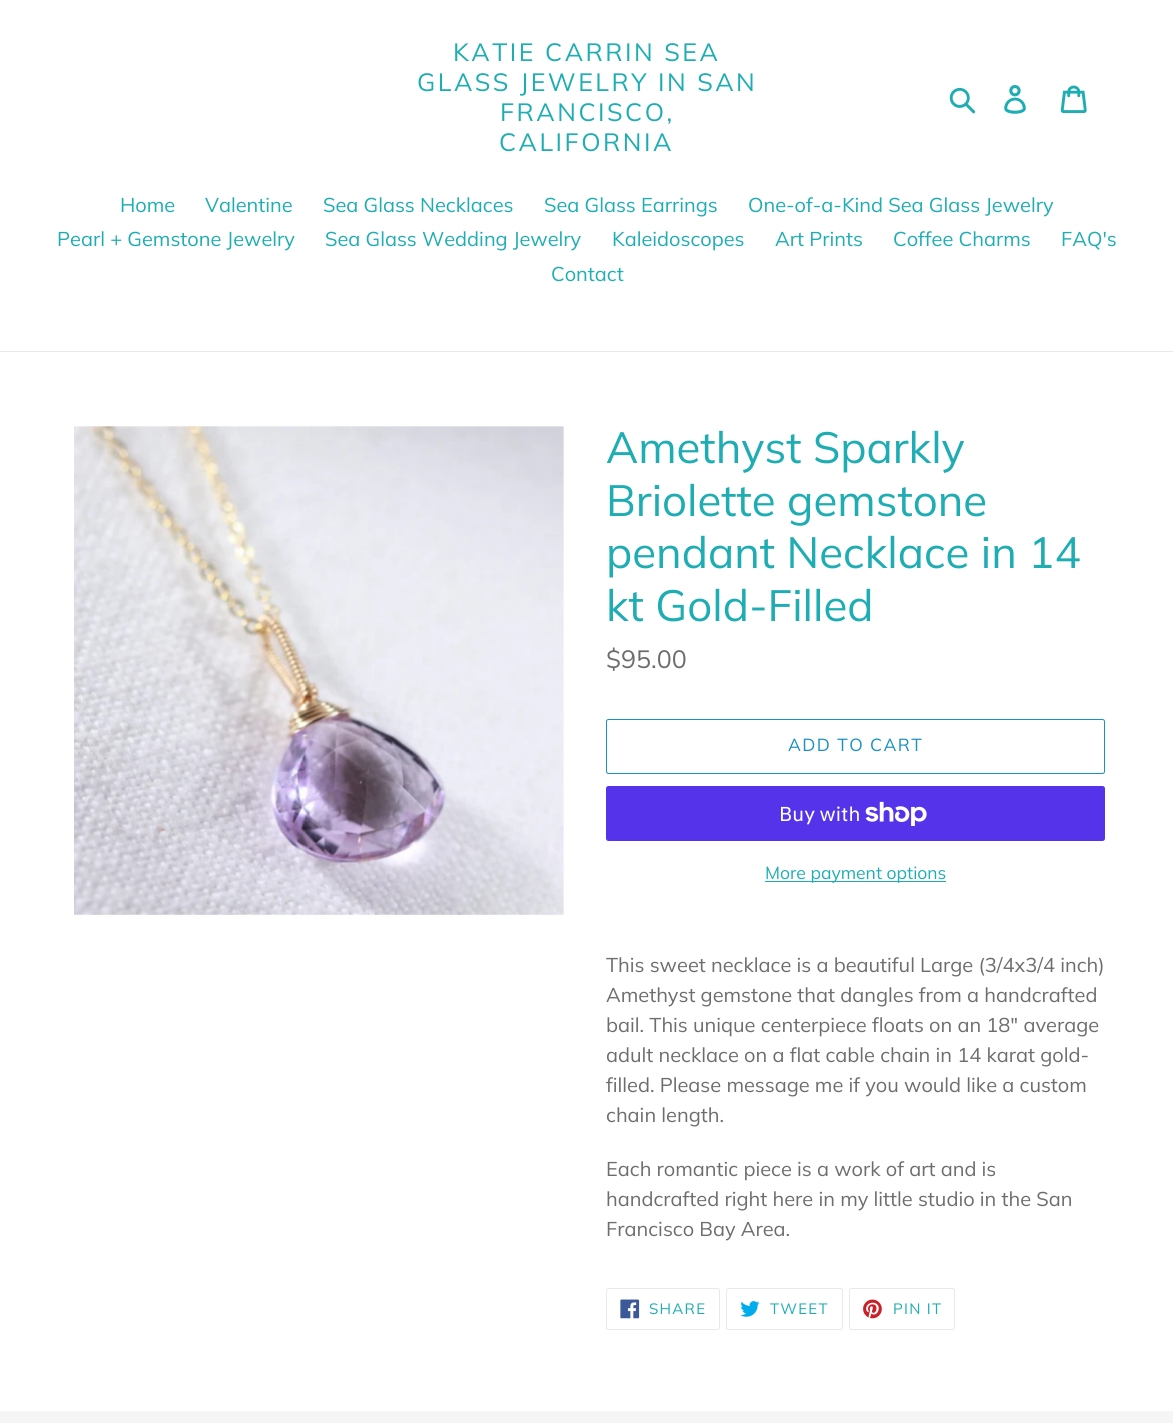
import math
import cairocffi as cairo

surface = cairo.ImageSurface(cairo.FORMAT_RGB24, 1173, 1423)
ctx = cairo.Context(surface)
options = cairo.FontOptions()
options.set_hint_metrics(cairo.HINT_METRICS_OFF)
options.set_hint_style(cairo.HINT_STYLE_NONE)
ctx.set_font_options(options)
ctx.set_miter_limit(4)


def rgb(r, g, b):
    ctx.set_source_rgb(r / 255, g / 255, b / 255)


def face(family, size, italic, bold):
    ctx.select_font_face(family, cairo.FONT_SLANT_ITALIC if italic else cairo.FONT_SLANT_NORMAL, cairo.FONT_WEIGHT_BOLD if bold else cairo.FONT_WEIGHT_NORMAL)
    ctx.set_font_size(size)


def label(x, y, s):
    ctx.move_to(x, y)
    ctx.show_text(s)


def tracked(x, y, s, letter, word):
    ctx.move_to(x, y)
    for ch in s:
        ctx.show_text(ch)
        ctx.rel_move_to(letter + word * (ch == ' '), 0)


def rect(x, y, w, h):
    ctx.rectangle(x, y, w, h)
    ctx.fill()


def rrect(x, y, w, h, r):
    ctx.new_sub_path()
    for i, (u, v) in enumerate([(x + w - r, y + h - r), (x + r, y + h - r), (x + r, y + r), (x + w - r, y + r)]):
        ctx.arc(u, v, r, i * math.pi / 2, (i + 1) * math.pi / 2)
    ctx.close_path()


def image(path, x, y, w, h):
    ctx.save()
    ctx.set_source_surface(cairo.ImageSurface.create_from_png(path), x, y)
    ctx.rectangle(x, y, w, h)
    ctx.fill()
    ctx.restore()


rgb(255, 255, 255)
ctx.paint()
face('Muli', 25, 0, 0)
rgb(30, 173, 179)
tracked(453, 61, 'KATIE CARRIN SEA', 2.5, 0)
tracked(417, 91, 'GLASS JEWELRY IN SAN', 2.5, 0)
tracked(500, 121, 'FRANCISCO,', 2.5, 0)
tracked(499, 151, 'CALIFORNIA', 2.5, 0)
image('image0.png', 949, 87, 27, 27)
image('image1.png', 1004, 85, 22, 29)
image('image2.png', 1060, 85, 27, 28)
rgb(232, 233, 235)
rect(0, 351, 1173, 1)
face('Muli', 20, 0, 0)
rgb(30, 173, 179)
label(120, 212, 'Home')
label(205, 212, 'Valentine')
label(323, 212, 'Sea Glass Necklaces')
label(544, 212, 'Sea Glass Earrings')
label(748, 212, 'One-of-a-Kind Sea Glass Jewelry')
label(57, 246, 'Pearl + Gemstone Jewelry')
label(325, 246, 'Sea Glass Wedding Jewelry')
label(612, 246, 'Kaleidoscopes')
label(775, 246, 'Art Prints')
label(893, 246, 'Coffee Charms')
label(1061, 246, 'FAQ\'s')
label(551, 281, 'Contact')
image('image3.png', 74, 426, 490, 489)
face('Muli', 43.75, 0, 0)
label(606, 463, 'Amethyst Sparkly')
label(606, 516, 'Briolette gemstone')
label(606, 568, 'pendant Necklace in 14')
label(606, 621, 'kt Gold-Filled')
face('Muli', 25, 0, 0)
rgb(109, 109, 109)
label(606, 668, '$95.00')
rrect(606.5, 719.5, 498, 54, 2)
rgb(25, 144, 198)
ctx.set_line_width(1)
ctx.stroke()
face('Muli', 17.5, 0, 0)
tracked(788, 751, 'ADD TO CART', 1.4, 0)
rgb(84, 51, 235)
rrect(606, 786, 499, 55, 2.5)
ctx.fill()
face('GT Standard', 20, 0, 0)
rgb(255, 255, 255)
label(779, 821, 'Buy with')
image('image4.png', 865, 801, 62, 25)
rgb(30, 173, 179)
rect(765, 881, 181, 1)
face('Muli', 17.5, 0, 0)
label(765, 879, 'More payment options')
face('Muli', 20, 0, 0)
rgb(109, 109, 109)
label(606, 972, 'This sweet necklace is a beautiful Large (3/4x3/4 inch)')
label(606, 1002, 'Amethyst gemstone that dangles from a handcrafted')
label(606, 1032, 'bail. This unique centerpiece floats on an 18" average')
label(606, 1062, 'adult necklace on a flat cable chain in 14 karat gold-')
label(606, 1092, 'filled. Please message me if you would like a custom')
label(606, 1122, 'chain length.')
label(606, 1176, 'Each romantic piece is a work of art and is')
label(606, 1206, 'handcrafted right here in my little studio in the San')
label(606, 1236, 'Francisco Bay Area.')
rrect(606.5, 1288.5, 113, 41, 2)
rgb(232, 233, 235)
ctx.stroke()
image('image5.png', 620, 1299, 20, 20)
face('Muli', 15, 0, 0)
rgb(30, 173, 179)
tracked(649, 1314, 'SHARE', 1.25, 0)
rrect(726.5, 1288.5, 116, 41, 2)
rgb(232, 233, 235)
ctx.stroke()
image('image6.png', 740, 1301, 20, 16)
rgb(30, 173, 179)
tracked(770, 1314, 'TWEET', 1.25, 0)
rrect(849.5, 1288.5, 105, 41, 2)
rgb(232, 233, 235)
ctx.stroke()
image('image7.png', 863, 1299, 19, 20)
rgb(30, 173, 179)
tracked(893, 1314, 'PIN IT', 1.25, 0)
rgb(245, 245, 245)
rect(0, 1411, 1173, 12)
surface.write_to_png('render.png')
